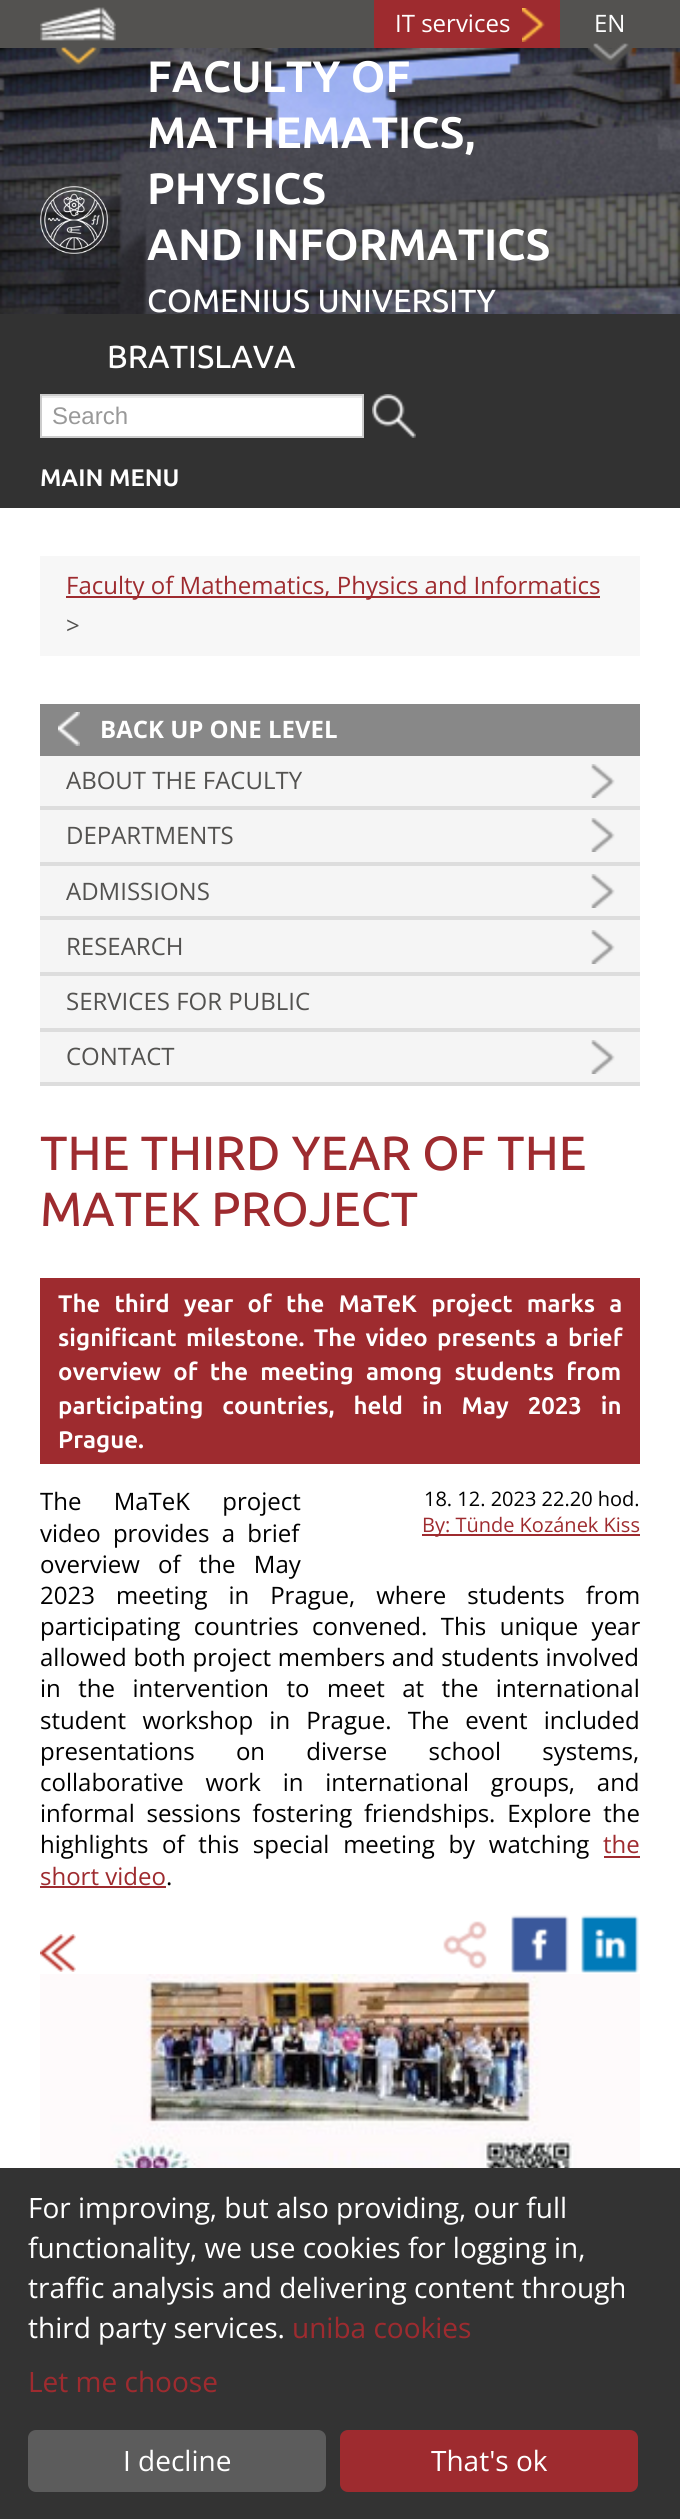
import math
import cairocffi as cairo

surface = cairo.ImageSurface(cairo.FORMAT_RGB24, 680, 2519)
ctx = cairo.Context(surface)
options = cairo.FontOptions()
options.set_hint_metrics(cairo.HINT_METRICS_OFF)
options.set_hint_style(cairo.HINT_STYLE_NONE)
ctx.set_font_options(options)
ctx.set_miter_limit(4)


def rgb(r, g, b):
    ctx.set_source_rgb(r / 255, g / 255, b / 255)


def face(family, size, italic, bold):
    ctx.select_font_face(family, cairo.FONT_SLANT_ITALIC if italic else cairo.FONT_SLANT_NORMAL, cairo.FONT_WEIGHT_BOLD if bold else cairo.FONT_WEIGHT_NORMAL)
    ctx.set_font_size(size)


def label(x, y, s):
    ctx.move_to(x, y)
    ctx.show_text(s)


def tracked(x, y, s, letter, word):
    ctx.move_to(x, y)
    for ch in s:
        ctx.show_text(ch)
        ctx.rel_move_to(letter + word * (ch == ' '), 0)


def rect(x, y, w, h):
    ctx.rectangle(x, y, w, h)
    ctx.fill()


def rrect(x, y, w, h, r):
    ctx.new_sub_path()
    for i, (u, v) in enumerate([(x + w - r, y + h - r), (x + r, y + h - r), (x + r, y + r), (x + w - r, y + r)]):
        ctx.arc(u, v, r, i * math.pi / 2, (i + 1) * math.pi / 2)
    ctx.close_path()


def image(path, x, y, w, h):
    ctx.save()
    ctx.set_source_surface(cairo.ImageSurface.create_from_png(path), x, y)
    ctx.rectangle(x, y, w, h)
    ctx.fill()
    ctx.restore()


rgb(255, 255, 255)
ctx.paint()
rgb(83, 82, 80)
rect(0, 0, 680, 48)
image('image3.png', 0, 48, 680, 266)
image('image0.png', 40, 7, 76, 63)
rgb(158, 43, 47)
rect(374, 0, 186, 48)
image('image1.png', 522, 8, 23, 34)
face('Open Sans', 24, 0, 0)
rgb(255, 255, 255)
label(395, 32, 'IT services')
image('image2.png', 588, 43, 45, 22)
label(594, 32, 'EN')
rgb(50, 50, 50)
rect(0, 314, 680, 194)
image('image4.png', 40, 186, 68, 68)
face('Ubuntu', 44, 0, 1)
rgb(255, 255, 255)
label(147, 92, 'FACULTY OF')
label(147, 148, 'MATHEMATICS,')
label(147, 204, 'PHYSICS')
label(147, 260, 'AND INFORMATICS')
face('Ubuntu Medium', 32, 0, 0)
label(147, 312, 'COMENIUS UNIVERSITY')
label(107, 368, 'BRATISLAVA')
rect(42, 398, 320, 38)
rgb(236, 236, 236)
rect(42, 396, 320, 2)
ctx.rectangle(41, 395, 322, 42)
rgb(204, 204, 204)
ctx.stroke()
face('Liberation Sans', 24, 0, 0)
rgb(153, 153, 153)
label(52, 424, 'Search')
image('image5.png', 372, 394, 44, 44)
face('Ubuntu', 24, 0, 1)
rgb(255, 255, 255)
label(40, 486, 'MAIN MENU')
rgb(247, 247, 247)
rect(40, 556, 600, 100)
rgb(158, 43, 47)
rect(66, 596, 534, 2)
face('Open Sans', 24, 0, 0)
label(66, 594, 'Faculty of Mathematics, Physics and Informatics')
rgb(83, 82, 80)
label(66, 634, '>')
rgb(245, 245, 245)
rect(40, 756, 600, 326)
rgb(136, 136, 136)
rect(40, 704, 600, 52)
image('image6.png', 58, 712, 22, 34)
face('Open Sans', 24, 0, 1)
rgb(255, 255, 255)
label(100, 738, 'BACK UP ONE LEVEL')
rgb(221, 221, 221)
rect(40, 806, 600, 4)
image('image7.png', 591, 764, 24, 34)
face('Open Sans', 24, 0, 0)
rgb(83, 82, 80)
label(66, 789, 'ABOUT THE FACULTY')
rgb(221, 221, 221)
rect(40, 862, 600, 4)
image('image7.png', 591, 818, 24, 34)
rgb(83, 82, 80)
label(66, 844, 'DEPARTMENTS')
rgb(221, 221, 221)
rect(40, 916, 600, 4)
image('image7.png', 591, 874, 24, 34)
rgb(83, 82, 80)
label(66, 900, 'ADMISSIONS')
rgb(221, 221, 221)
rect(40, 972, 600, 4)
image('image7.png', 591, 930, 24, 34)
rgb(83, 82, 80)
label(66, 955, 'RESEARCH')
rgb(221, 221, 221)
rect(40, 1028, 600, 4)
rgb(83, 82, 80)
label(66, 1010, 'SERVICES FOR PUBLIC')
rgb(221, 221, 221)
rect(40, 1082, 600, 4)
image('image7.png', 591, 1040, 24, 34)
rgb(83, 82, 80)
label(66, 1065, 'CONTACT')
face('Ubuntu Medium', 48, 0, 0)
rgb(158, 43, 47)
label(40, 1170, 'THE THIRD YEAR OF THE')
label(40, 1226, 'MATEK PROJECT')
rect(40, 1278, 600, 186)
face('Ubuntu', 24, 0, 1)
rgb(255, 255, 255)
tracked(58, 1312, 'The third year of the MaTeK project marks a', 0, 8.5)
tracked(58, 1346, 'significant milestone. The video presents a brief', 0, 3.75)
tracked(58, 1380, 'overview of the meeting among students from', 0, 6.5)
tracked(58, 1414, 'participating countries, held in May 2023 in', 0, 13.25)
label(58, 1448, 'Prague.')
face('Open Sans', 20, 0, 0)
rgb(0, 0, 0)
label(424, 1506, '18. 12. 2023 22.20 hod.')
rgb(158, 43, 47)
rect(422, 1534, 218, 2)
label(422, 1532, 'By: Tünde Kozánek Kiss')
face('Open Sans', 24, 0, 0)
rgb(0, 0, 0)
tracked(40, 1510, 'The MaTeK project', 0, 26)
tracked(40, 1542, 'video provides a brief', 0, 6)
tracked(40, 1573, 'overview of the May', 0, 12)
tracked(40, 1604, '2023 meeting in Prague, where students from', 0, 14.75)
tracked(40, 1635, 'participating countries convened. This unique year', 0, 7.25)
tracked(40, 1666, 'allowed both project members and students involved', 0, 0.5)
tracked(40, 1697, 'in the intervention to meet at the international', 0, 11.25)
tracked(40, 1729, 'student workshop in Prague. The event included', 0, 10)
tracked(40, 1760, 'presentations on diverse school systems,', 0, 35)
tracked(40, 1791, 'collaborative work in international groups, and', 0, 15.5)
tracked(40, 1822, 'informal sessions fostering friendships. Explore the', 0, 5.5)
tracked(40, 1853, 'highlights of this special meeting by watching', 0, 7.5)
rgb(158, 43, 47)
label(603, 1853, 'the')
rect(604, 1856, 36, 2)
label(40, 1885, 'short video')
rect(40, 1886, 126, 2)
rgb(0, 0, 0)
label(166, 1885, '.')
image('image8.png', 40, 1934, 36, 38)
image('image9.png', 443, 1921, 44, 48)
image('image10.png', 511, 1915, 58, 58)
image('image11.png', 581, 1915, 58, 58)
image('image12.png', 40, 1974, 600, 194)
rgb(51, 51, 51)
rect(0, 2168, 680, 351)
face('Open Sans', 28, 0, 0)
rgb(255, 255, 255)
label(28, 2218, 'For improving, but also providing, our full')
label(28, 2258, 'functionality, we use cookies for logging in,')
label(28, 2298, 'traffic analysis and delivering content through')
label(28, 2338, 'third party services.')
rgb(158, 43, 47)
label(292, 2338, 'uniba cookies')
label(28, 2392, 'Let me choose')
rgb(92, 92, 92)
rrect(28, 2430, 298, 62, 8)
ctx.fill()
rgb(255, 255, 255)
label(123, 2471, 'I decline')
rgb(158, 43, 47)
rrect(340, 2430, 298, 62, 8)
ctx.fill()
rgb(255, 255, 255)
label(431, 2471, 'That\'s ok')
surface.write_to_png('render.png')
